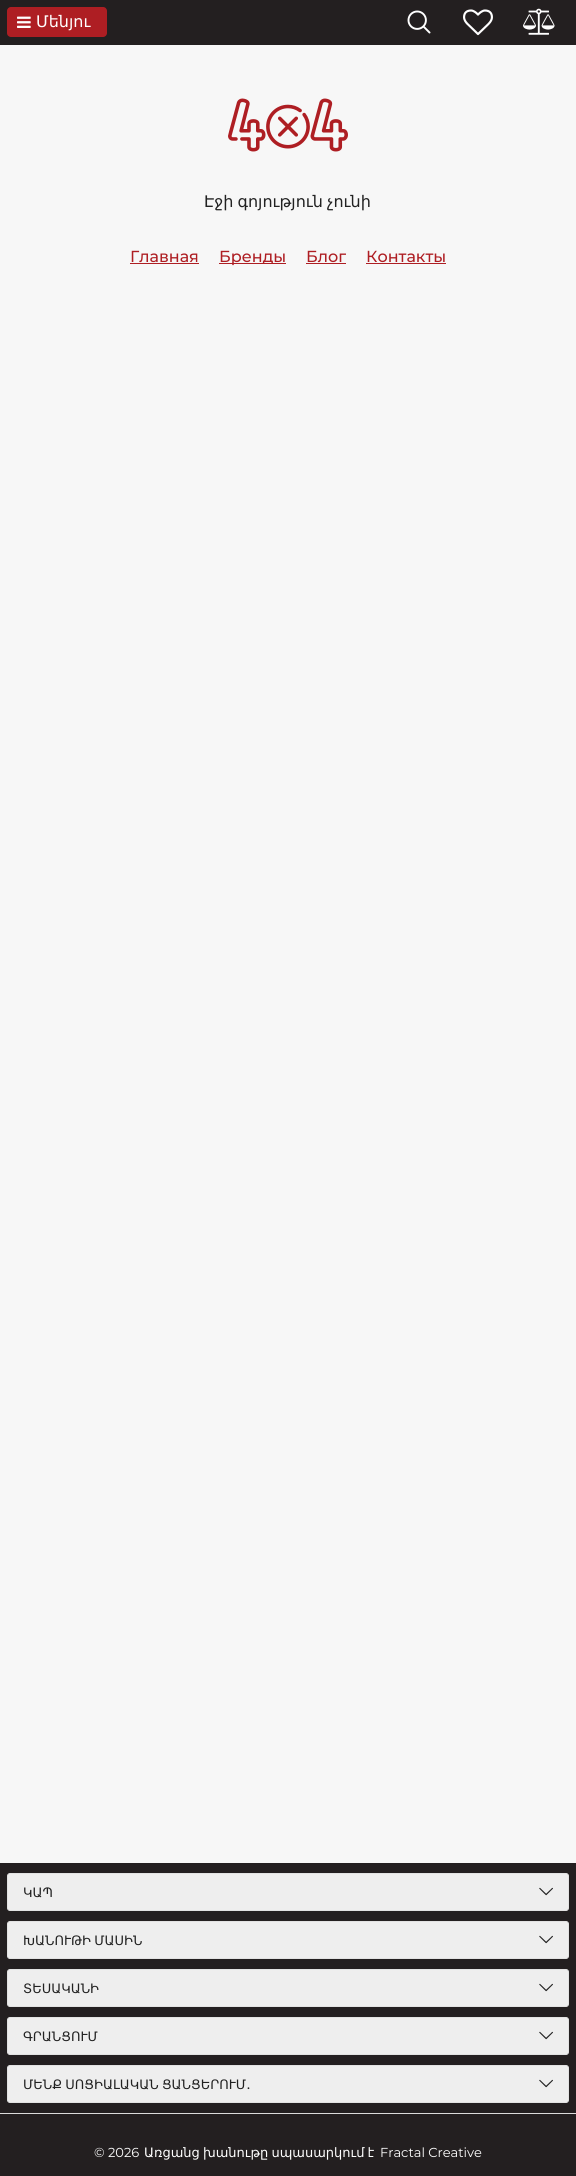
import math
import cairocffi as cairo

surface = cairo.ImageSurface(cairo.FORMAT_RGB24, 576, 2176)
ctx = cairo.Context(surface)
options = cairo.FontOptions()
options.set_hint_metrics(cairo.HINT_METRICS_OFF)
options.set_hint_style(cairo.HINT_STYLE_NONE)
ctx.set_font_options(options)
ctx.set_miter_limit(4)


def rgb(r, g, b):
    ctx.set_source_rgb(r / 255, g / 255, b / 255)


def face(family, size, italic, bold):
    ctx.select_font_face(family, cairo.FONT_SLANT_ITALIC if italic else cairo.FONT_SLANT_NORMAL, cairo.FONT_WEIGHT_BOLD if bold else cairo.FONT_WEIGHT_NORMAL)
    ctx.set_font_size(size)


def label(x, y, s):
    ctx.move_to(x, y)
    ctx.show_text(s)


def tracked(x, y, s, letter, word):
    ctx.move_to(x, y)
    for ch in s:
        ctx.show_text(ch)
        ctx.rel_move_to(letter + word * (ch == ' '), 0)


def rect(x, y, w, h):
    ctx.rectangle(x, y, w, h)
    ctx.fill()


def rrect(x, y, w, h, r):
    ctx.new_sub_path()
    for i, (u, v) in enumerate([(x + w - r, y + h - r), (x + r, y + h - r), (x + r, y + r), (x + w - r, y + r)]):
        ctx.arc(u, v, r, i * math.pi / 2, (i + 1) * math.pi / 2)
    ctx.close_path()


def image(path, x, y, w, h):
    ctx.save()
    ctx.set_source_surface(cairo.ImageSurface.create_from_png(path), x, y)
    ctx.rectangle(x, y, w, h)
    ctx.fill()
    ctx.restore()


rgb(247, 247, 247)
ctx.paint()
rgb(35, 31, 32)
rect(0, 0, 576, 45)
rgb(174, 30, 35)
rrect(7, 7, 100, 30, 4)
ctx.fill()
image('image0.png', 17, 16, 14, 12)
face('DejaVu Sans', 16, 0, 0)
rgb(255, 255, 255)
label(36, 27, 'Մենյու')
image('image1.png', 407, 10, 24, 24)
image('image2.png', 463, 9, 30, 27)
image('image3.png', 523, 8, 32, 27)
image('image4.png', 228, 98, 120, 54)
rgb(34, 34, 34)
tracked(204, 207, 'Էջի գոյություն չունի', 0, -1)
face('Montserrat Medium', 16, 0, 0)
rgb(174, 30, 35)
label(130, 262, 'Главная')
rect(130, 263, 69, 1)
rect(219, 263, 67, 1)
label(219, 262, 'Бренды')
label(306, 262, 'Блог')
rect(306, 263, 40, 1)
label(366, 262, 'Контакты')
rect(366, 263, 80, 1)
rgb(35, 31, 32)
rect(0, 1863, 576, 313)
rgb(238, 238, 238)
rrect(7.5, 1873.5, 561, 37, 2.5)
ctx.fill_preserve()
rgb(226, 226, 226)
ctx.set_line_width(1)
ctx.stroke()
face('DejaVu Sans', 13, 0, 0)
rgb(34, 34, 34)
label(23, 1897, 'ԿԱՊ')
image('image5.png', 539, 1887, 14, 9)
rgb(238, 238, 238)
rrect(7.5, 1921.5, 561, 37, 2.5)
ctx.fill_preserve()
rgb(226, 226, 226)
ctx.stroke()
rgb(34, 34, 34)
tracked(23, 1945, 'ԽԱՆՈՒԹԻ ՄԱՍԻՆ', 0, -1)
image('image5.png', 539, 1935, 14, 9)
rgb(238, 238, 238)
rrect(7.5, 1969.5, 561, 37, 2.5)
ctx.fill_preserve()
rgb(226, 226, 226)
ctx.stroke()
rgb(34, 34, 34)
label(23, 1993, 'ՏԵՍԱԿԱՆԻ')
image('image5.png', 539, 1983, 14, 9)
rgb(238, 238, 238)
rrect(7.5, 2017.5, 561, 37, 2.5)
ctx.fill_preserve()
rgb(226, 226, 226)
ctx.stroke()
rgb(34, 34, 34)
label(23, 2041, 'ԳՐԱՆՑՈՒՄ')
image('image5.png', 539, 2031, 14, 9)
rgb(238, 238, 238)
rrect(7.5, 2065.5, 561, 37, 2.5)
ctx.fill_preserve()
rgb(226, 226, 226)
ctx.stroke()
rgb(34, 34, 34)
tracked(23, 2089, 'ՄԵՆՔ ՍՈՑԻԱԼԱԿԱՆ ՑԱՆՑԵՐՈՒՄ', 0, -1)
face('Montserrat Medium', 13, 0, 0)
label(247, 2089, '.')
image('image5.png', 539, 2079, 14, 9)
rgb(219, 219, 219)
rect(0, 2113, 576, 1)
face('Montserrat', 13, 0, 0)
rgb(255, 255, 255)
label(94, 2157, '© 2026')
face('DejaVu Sans', 13, 0, 0)
tracked(144, 2157, 'Առցանց խանութը սպասարկում է', 0, -1)
face('Montserrat', 13, 0, 0)
label(380, 2157, 'Fractal Creative')
surface.write_to_png('render.png')
